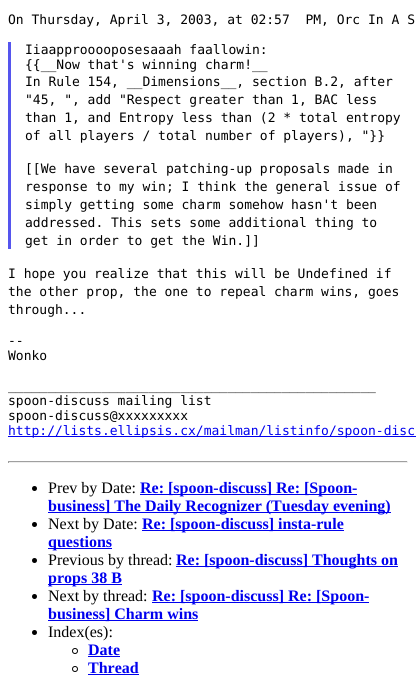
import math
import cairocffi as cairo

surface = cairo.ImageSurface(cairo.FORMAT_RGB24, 416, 693)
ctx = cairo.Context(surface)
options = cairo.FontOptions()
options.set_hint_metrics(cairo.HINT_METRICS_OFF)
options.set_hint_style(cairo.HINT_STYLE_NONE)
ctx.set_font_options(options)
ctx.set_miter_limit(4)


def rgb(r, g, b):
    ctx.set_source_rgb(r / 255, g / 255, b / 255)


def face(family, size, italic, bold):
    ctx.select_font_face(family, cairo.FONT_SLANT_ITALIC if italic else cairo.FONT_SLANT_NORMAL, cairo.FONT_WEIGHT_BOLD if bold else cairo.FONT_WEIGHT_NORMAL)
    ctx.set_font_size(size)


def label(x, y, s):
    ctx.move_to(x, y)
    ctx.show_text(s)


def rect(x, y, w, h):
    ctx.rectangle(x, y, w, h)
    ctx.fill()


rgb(255, 255, 255)
ctx.paint()
face('DejaVu Sans Mono', 13, 0, 0)
rgb(0, 0, 0)
label(8, 24, 'On Thursday, April 3, 2003, at 02:57  PM, Orc In A S')
rgb(85, 85, 238)
rect(8, 42, 3, 207)
rgb(0, 0, 0)
label(25, 54, 'Iiaapprooooposesaaah faallowin:')
label(25, 69, '{{__Now that\'s winning charm!__')
label(25, 86, 'In Rule 154, __Dimensions__, section B.2, after')
label(25, 104, '"45, ", add "Respect greater than 1, BAC less')
label(25, 122, 'than 1, and Entropy less than (2 * total entropy')
label(25, 140, 'of all players / total number of players), "}}')
label(25, 173, '[[We have several patching-up proposals made in')
label(25, 191, 'response to my win; I think the general issue of')
label(25, 209, 'simply getting some charm somehow hasn\'t been')
label(25, 227, 'addressed. This sets some additional thing to')
label(25, 245, 'get in order to get the Win.]]')
label(8, 278, 'I hope you realize that this will be Undefined if')
label(8, 296, 'the other prop, the one to repeal charm wins, goes')
label(8, 314, 'through...')
label(8, 345, '--')
label(8, 360, 'Wonko')
label(8, 390, '_______________________________________________')
label(8, 405, 'spoon-discuss mailing list')
label(8, 420, 'spoon-discuss@xxxxxxxxx')
rgb(0, 0, 238)
rect(8, 436, 408, 1)
label(8, 435, 'http://lists.ellipsis.cx/mailman/listinfo/spoon-disc')
rgb(159, 159, 159)
rect(8, 461, 400, 1)
rgb(238, 238, 238)
rect(407, 461, 1, 2)
rect(8, 462, 400, 1)
rgb(159, 159, 159)
rect(8, 461, 1, 2)
rgb(0, 0, 0)
ctx.new_path()
ctx.arc(34.5, 488.5, 2.5, 0, 2 * math.pi)
ctx.fill()
face('Liberation Serif', 16, 0, 0)
label(48, 493, 'Prev by Date:')
rgb(0, 0, 238)
rect(140, 494, 217, 1)
face('Liberation Serif', 16, 0, 1)
label(140, 493, 'Re: [spoon-discuss] Re: [Spoon-')
rect(48, 512, 343, 1)
label(48, 511, 'business] The Daily Recognizer (Tuesday evening)')
rgb(0, 0, 0)
ctx.new_path()
ctx.arc(34.5, 524.5, 2.5, 0, 2 * math.pi)
ctx.fill()
face('Liberation Serif', 16, 0, 0)
label(48, 529, 'Next by Date:')
rgb(0, 0, 238)
rect(142, 530, 202, 1)
face('Liberation Serif', 16, 0, 1)
label(142, 529, 'Re: [spoon-discuss] insta-rule')
rect(48, 548, 64, 1)
label(48, 547, 'questions')
rgb(0, 0, 0)
ctx.new_path()
ctx.arc(34.5, 560.5, 2.5, 0, 2 * math.pi)
ctx.fill()
face('Liberation Serif', 16, 0, 0)
label(48, 565, 'Previous by thread:')
rgb(0, 0, 238)
rect(176, 566, 222, 1)
face('Liberation Serif', 16, 0, 1)
label(176, 565, 'Re: [spoon-discuss] Thoughts on')
rect(48, 584, 74, 1)
label(48, 583, 'props 38 B')
rgb(0, 0, 0)
ctx.new_path()
ctx.arc(34.5, 596.5, 2.5, 0, 2 * math.pi)
ctx.fill()
face('Liberation Serif', 16, 0, 0)
label(48, 601, 'Next by thread:')
rgb(0, 0, 238)
rect(152, 602, 217, 1)
face('Liberation Serif', 16, 0, 1)
label(152, 601, 'Re: [spoon-discuss] Re: [Spoon-')
rect(48, 620, 150, 1)
label(48, 619, 'business] Charm wins')
rgb(0, 0, 0)
ctx.new_path()
ctx.arc(34.5, 632.5, 2.5, 0, 2 * math.pi)
ctx.fill()
face('Liberation Serif', 16, 0, 0)
label(48, 637, 'Index(es):')
ctx.new_path()
ctx.arc(75, 651, 2.5, 0, 2 * math.pi)
ctx.set_line_width(1)
ctx.stroke()
face('Liberation Serif', 16, 0, 1)
rgb(0, 0, 238)
label(88, 655, 'Date')
rect(88, 656, 32, 1)
ctx.new_path()
ctx.arc(75, 669, 2.5, 0, 2 * math.pi)
rgb(0, 0, 0)
ctx.stroke()
rgb(0, 0, 238)
label(88, 673, 'Thread')
rect(88, 674, 51, 1)
surface.write_to_png('render.png')
